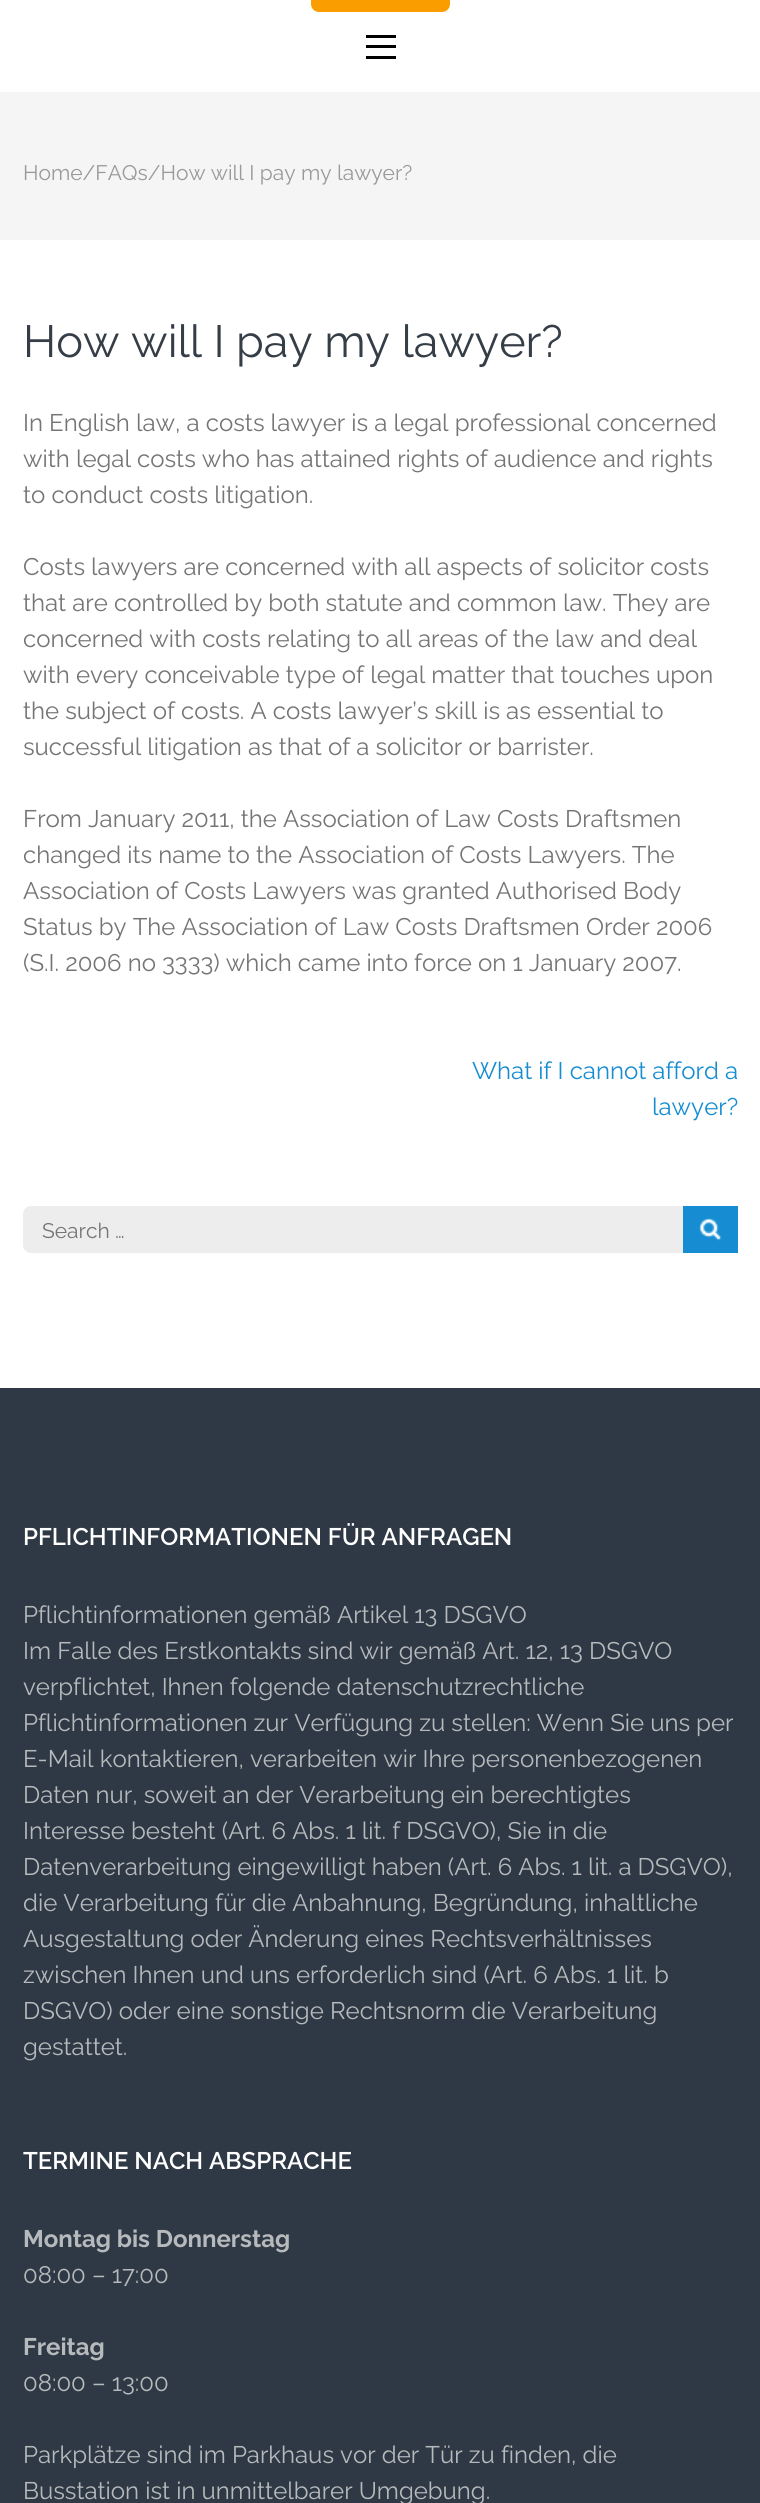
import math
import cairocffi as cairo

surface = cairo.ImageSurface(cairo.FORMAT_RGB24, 760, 2503)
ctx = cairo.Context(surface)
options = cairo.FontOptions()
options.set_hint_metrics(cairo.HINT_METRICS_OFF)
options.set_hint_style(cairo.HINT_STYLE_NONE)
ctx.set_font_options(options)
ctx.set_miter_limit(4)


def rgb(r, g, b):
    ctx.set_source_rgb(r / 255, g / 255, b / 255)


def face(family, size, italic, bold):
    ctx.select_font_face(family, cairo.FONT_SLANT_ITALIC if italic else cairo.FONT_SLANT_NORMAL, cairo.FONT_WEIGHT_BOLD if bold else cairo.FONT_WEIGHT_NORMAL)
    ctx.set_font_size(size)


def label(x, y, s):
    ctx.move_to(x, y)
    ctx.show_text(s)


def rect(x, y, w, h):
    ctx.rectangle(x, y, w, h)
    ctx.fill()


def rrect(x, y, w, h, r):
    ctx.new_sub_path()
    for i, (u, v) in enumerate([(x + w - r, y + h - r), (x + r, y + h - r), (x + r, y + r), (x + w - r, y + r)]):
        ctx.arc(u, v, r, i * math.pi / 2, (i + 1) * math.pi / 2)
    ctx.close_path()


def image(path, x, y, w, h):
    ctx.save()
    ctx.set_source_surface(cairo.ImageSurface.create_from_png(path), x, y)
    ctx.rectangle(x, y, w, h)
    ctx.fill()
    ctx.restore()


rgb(255, 255, 255)
ctx.paint()
rgb(250, 157, 0)
rrect(312, -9, 137, 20, 7)
ctx.fill_preserve()
ctx.stroke()
rgb(0, 0, 0)
rect(366, 35, 30, 3)
rect(366, 45, 30, 3)
rect(366, 56, 30, 3)
rgb(245, 245, 245)
rect(0, 92, 760, 148)
face('Raleway', 21, 0, 0)
rgb(153, 153, 153)
label(23, 180, 'Home/FAQs/How will I pay my lawyer?')
face('Raleway', 45, 0, 0)
rgb(53, 61, 71)
label(23, 357, 'How will I pay my lawyer?')
face('Raleway', 24, 0, 0)
rgb(117, 117, 117)
label(23, 431, 'In English law, a costs lawyer is a legal professional concerned')
label(23, 467, 'with legal costs who has attained rights of audience and rights')
label(23, 503, 'to conduct costs litigation.')
label(23, 575, 'Costs lawyers are concerned with all aspects of solicitor costs')
label(23, 611, 'that are controlled by both statute and common law. They are')
label(23, 647, 'concerned with costs relating to all areas of the law and deal')
label(23, 683, 'with every conceivable type of legal matter that touches upon')
label(23, 719, 'the subject of costs. A costs lawyer’s skill is as essential to')
label(23, 755, 'successful litigation as that of a solicitor or barrister.')
label(23, 827, 'From January 2011, the Association of Law Costs Draftsmen')
label(23, 863, 'changed its name to the Association of Costs Lawyers. The')
label(23, 899, 'Association of Costs Lawyers was granted Authorised Body')
label(23, 935, 'Status by The Association of Law Costs Draftsmen Order 2006')
label(23, 971, '(S.I. 2006 no 3333) which came into force on 1 January 2007.')
rgb(22, 141, 210)
label(472, 1079, 'What if I cannot afford a')
label(652, 1115, 'lawyer?')
rgb(237, 237, 237)
rrect(23, 1206, 715, 47, 8)
ctx.fill()
face('Raleway', 21, 0, 0)
rgb(117, 117, 117)
label(42, 1238, 'Search …')
rgb(22, 141, 210)
rect(683, 1206, 55, 47)
image('image0.png', 699, 1218, 23, 23)
rgb(47, 57, 69)
rect(0, 1388, 760, 1115)
face('Raleway SemiBold', 24, 0, 0)
rgb(255, 255, 255)
label(23, 1545, 'PFLICHTINFORMATIONEN FÜR ANFRAGEN')
face('Raleway', 24, 0, 0)
rgb(183, 186, 188)
label(23, 1623, 'Pflichtinformationen gemäß Artikel 13 DSGVO')
label(23, 1659, 'Im Falle des Erstkontakts sind wir gemäß Art. 12, 13 DSGVO')
label(23, 1695, 'verpflichtet, Ihnen folgende datenschutzrechtliche')
label(23, 1731, 'Pflichtinformationen zur Verfügung zu stellen: Wenn Sie uns per')
label(23, 1767, 'E-Mail kontaktieren, verarbeiten wir Ihre personenbezogenen')
label(23, 1803, 'Daten nur, soweit an der Verarbeitung ein berechtigtes')
label(23, 1839, 'Interesse besteht (Art. 6 Abs. 1 lit. f DSGVO), Sie in die')
label(23, 1875, 'Datenverarbeitung eingewilligt haben (Art. 6 Abs. 1 lit. a DSGVO),')
label(23, 1911, 'die Verarbeitung für die Anbahnung, Begründung, inhaltliche')
label(23, 1947, 'Ausgestaltung oder Änderung eines Rechtsverhältnisses')
label(23, 1983, 'zwischen Ihnen und uns erforderlich sind (Art. 6 Abs. 1 lit. b')
label(23, 2019, 'DSGVO) oder eine sonstige Rechtsnorm die Verarbeitung')
label(23, 2055, 'gestattet.')
face('Raleway SemiBold', 24, 0, 0)
rgb(255, 255, 255)
label(23, 2169, 'TERMINE NACH ABSPRACHE')
face('Raleway', 24, 0, 1)
rgb(183, 186, 188)
label(23, 2247, 'Montag bis Donnerstag')
face('Raleway', 24, 0, 0)
label(23, 2283, '08:00 – 17:00')
face('Raleway', 24, 0, 1)
label(23, 2355, 'Freitag')
face('Raleway', 24, 0, 0)
label(23, 2391, '08:00 – 13:00')
label(23, 2463, 'Parkplätze sind im Parkhaus vor der Tür zu finden, die')
label(23, 2499, 'Busstation ist in unmittelbarer Umgebung.')
surface.write_to_png('render.png')
